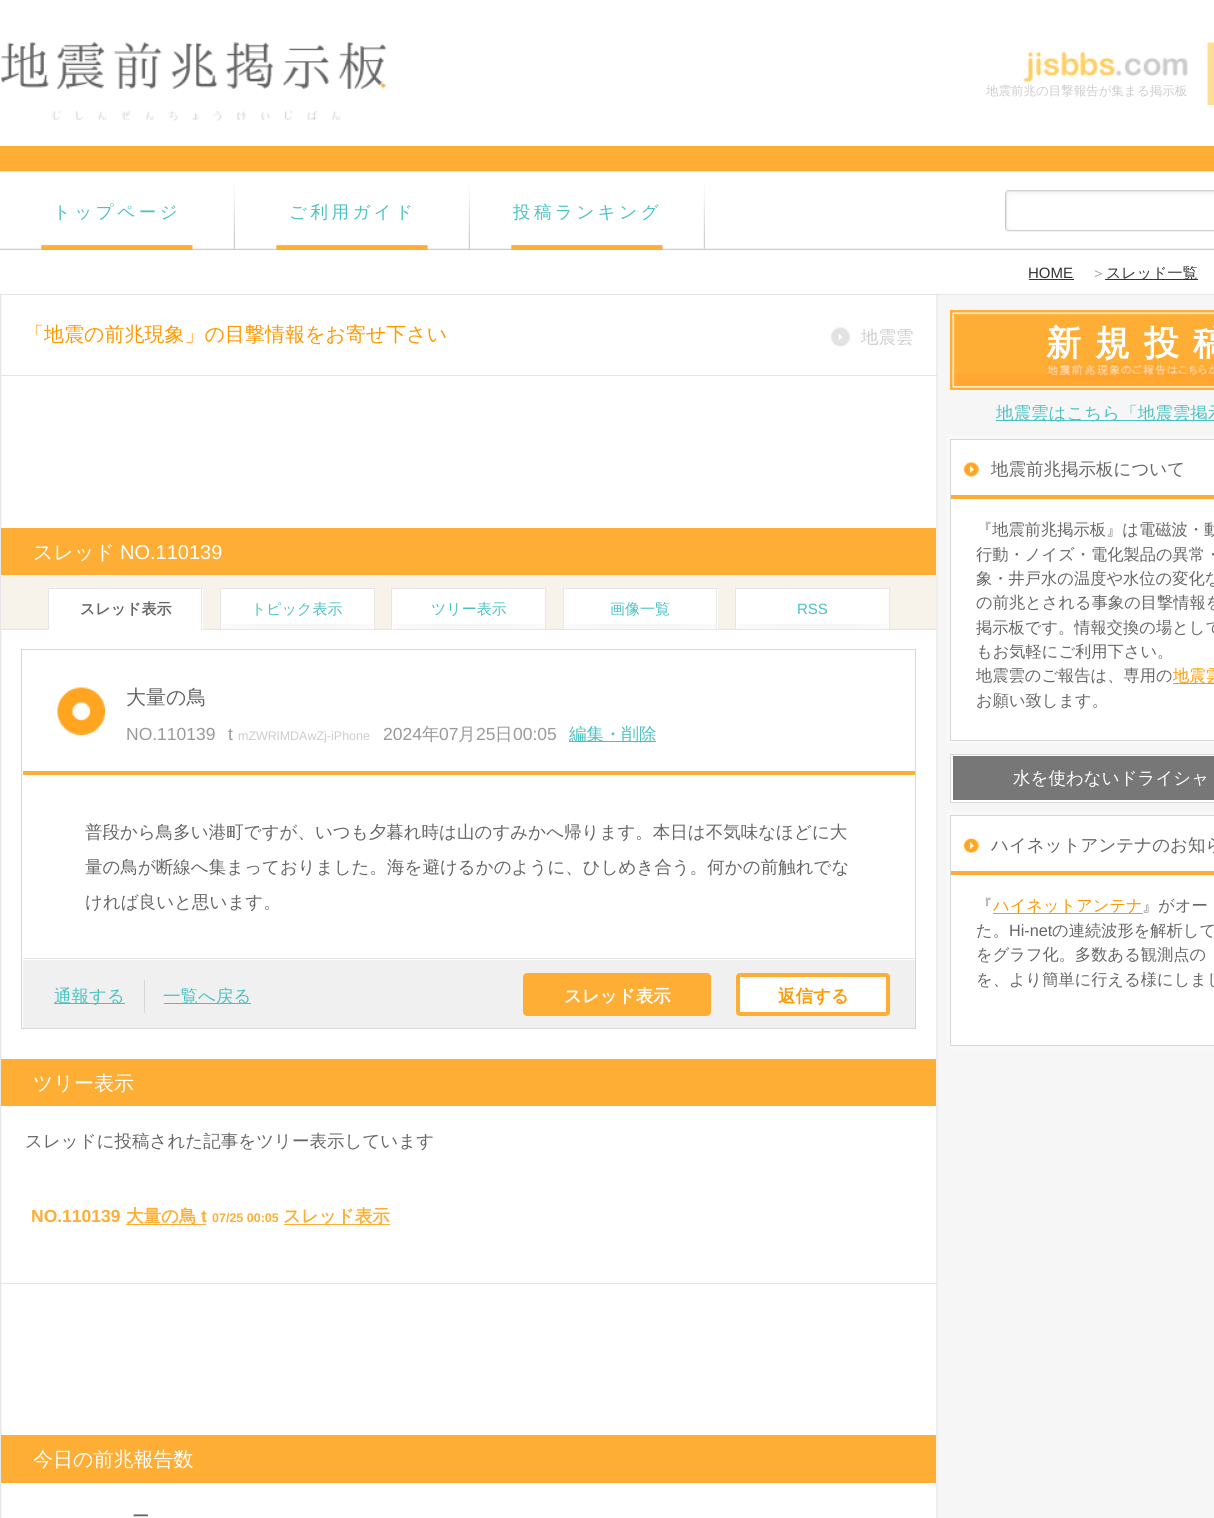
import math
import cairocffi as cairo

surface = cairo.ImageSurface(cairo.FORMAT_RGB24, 1214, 1518)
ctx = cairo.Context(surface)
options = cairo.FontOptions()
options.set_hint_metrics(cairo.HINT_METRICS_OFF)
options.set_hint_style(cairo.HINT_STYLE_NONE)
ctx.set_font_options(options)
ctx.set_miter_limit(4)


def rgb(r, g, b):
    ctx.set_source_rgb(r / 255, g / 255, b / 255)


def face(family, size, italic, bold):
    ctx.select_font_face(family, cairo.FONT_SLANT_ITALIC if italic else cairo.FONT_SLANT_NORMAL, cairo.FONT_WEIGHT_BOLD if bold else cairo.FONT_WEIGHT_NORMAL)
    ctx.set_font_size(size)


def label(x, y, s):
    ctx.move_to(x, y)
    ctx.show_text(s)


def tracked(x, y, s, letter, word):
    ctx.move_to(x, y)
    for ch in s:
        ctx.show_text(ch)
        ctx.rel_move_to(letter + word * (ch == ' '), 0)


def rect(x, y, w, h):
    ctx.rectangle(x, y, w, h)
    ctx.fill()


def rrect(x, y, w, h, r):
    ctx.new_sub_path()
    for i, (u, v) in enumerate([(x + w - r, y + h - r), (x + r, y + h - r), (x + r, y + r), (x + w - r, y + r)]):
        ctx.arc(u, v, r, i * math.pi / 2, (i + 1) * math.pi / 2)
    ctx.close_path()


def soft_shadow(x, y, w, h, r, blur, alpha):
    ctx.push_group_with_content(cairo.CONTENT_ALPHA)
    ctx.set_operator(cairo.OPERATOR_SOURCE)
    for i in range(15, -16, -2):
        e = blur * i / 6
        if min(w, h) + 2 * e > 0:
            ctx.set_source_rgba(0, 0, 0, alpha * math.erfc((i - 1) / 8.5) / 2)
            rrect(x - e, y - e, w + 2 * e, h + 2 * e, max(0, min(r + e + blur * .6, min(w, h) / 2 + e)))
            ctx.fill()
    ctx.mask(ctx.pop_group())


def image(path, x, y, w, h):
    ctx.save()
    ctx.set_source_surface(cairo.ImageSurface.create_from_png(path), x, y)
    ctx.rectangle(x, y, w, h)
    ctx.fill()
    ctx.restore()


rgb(255, 255, 255)
ctx.paint()
image('image0.png', 1, 42, 386, 79)
image('image1.png', 1023, 42, 191, 63)
face('WenQuanYi Zen Hei Medium', 12.5, 0, 0)
rgb(204, 204, 204)
label(986, 95, '地震前兆の目撃報告が集まる掲示板')
rgb(255, 174, 53)
rect(0, 146, 1214, 26)
image('image2.png', 0, 171, 1214, 79)
image('image3.png', 41, 185, 194, 65)
face('WenQuanYi Zen Hei Medium', 17.5, 0, 0)
rgb(75, 194, 194)
tracked(53, 218, 'トップページ', 3.5, 0)
image('image4.png', 276, 185, 194, 65)
tracked(289, 218, 'ご利用ガイド', 3.5, 0)
image('image4.png', 511, 185, 194, 65)
tracked(513, 218, '投稿ランキング', 3.5, 0)
image('image5.png', 1005, 190, 209, 42)
face('Liberation Sans', 15, 0, 0)
rgb(51, 51, 51)
label(1028, 278, 'HOME')
rect(1029, 279, 45, 1)
face('WenQuanYi Zen Hei Medium', 15, 0, 0)
rgb(153, 153, 153)
label(1091, 278, '＞')
rgb(51, 51, 51)
rect(1105, 279, 93, 1)
label(1106, 278, 'スレッド一覧')
image('image6.png', 0, 293, 1214, 1225)
rgb(230, 230, 230)
rect(0, 294, 1214, 1)
face('WenQuanYi Zen Hei Medium', 20, 0, 0)
rgb(255, 153, 0)
label(24, 341, '「地震の前兆現象」の目撃情報をお寄せ下さい')
image('image7.png', 831, 327, 19, 20)
face('WenQuanYi Zen Hei Medium', 17.5, 0, 0)
rgb(204, 204, 204)
label(861, 343, '地震雲')
rgb(230, 230, 230)
rect(0, 375, 938, 1)
rgb(255, 174, 53)
rect(1, 528, 935, 47)
face('WenQuanYi Zen Hei Medium', 20, 0, 0)
rgb(255, 255, 255)
label(33, 559, 'スレッド')
face('Liberation Sans', 20, 0, 0)
label(120, 559, 'NO.110139')
rgb(247, 243, 234)
rect(1, 575, 935, 55)
image('image8.png', 1, 628, 935, 2)
rgb(255, 255, 255)
rect(49, 589, 154, 41)
rgb(230, 230, 230)
rect(48, 588, 155, 1)
rect(201, 588, 1, 42)
rect(48, 588, 1, 42)
face('WenQuanYi Zen Hei', 15, 0, 1)
rgb(102, 102, 102)
label(80, 614, 'スレッド表示')
rgb(255, 255, 255)
rect(221, 589, 153, 40)
rgb(230, 230, 230)
rect(220, 588, 155, 1)
rect(374, 588, 1, 42)
rect(220, 588, 1, 42)
image('image9.png', 222, 624, 151, 5)
face('WenQuanYi Zen Hei Medium', 15, 0, 0)
rgb(75, 194, 194)
label(251, 614, 'トピック表示')
rgb(255, 255, 255)
rect(392, 589, 153, 41)
rgb(230, 230, 230)
rect(391, 588, 155, 1)
rect(545, 588, 1, 42)
rect(391, 588, 1, 42)
image('image10.png', 393, 624, 152, 5)
rect(393, 629, 152, 1)
rgb(75, 194, 194)
label(431, 614, 'ツリー表示')
rgb(255, 255, 255)
rect(564, 589, 154, 41)
rgb(230, 230, 230)
rect(563, 588, 155, 1)
rect(716, 588, 1, 42)
rect(563, 588, 1, 42)
image('image11.png', 563, 624, 154, 5)
rect(564, 629, 152, 1)
rgb(75, 194, 194)
label(610, 614, '画像一覧')
rgb(255, 255, 255)
rect(736, 589, 153, 40)
rgb(230, 230, 230)
rect(735, 588, 155, 1)
rect(889, 588, 1, 42)
rect(735, 588, 1, 42)
image('image9.png', 737, 624, 151, 5)
face('Liberation Sans', 15, 0, 0)
rgb(75, 194, 194)
label(797, 614, 'RSS')
ctx.rectangle(21.5, 649.5, 894, 379)
rgb(215, 215, 215)
ctx.set_line_width(1)
ctx.stroke()
image('image12.png', 57, 687, 48, 48)
face('WenQuanYi Zen Hei Medium', 20, 0, 0)
rgb(102, 102, 102)
label(126, 704, '大量の鳥')
face('Liberation Sans', 17.5, 0, 0)
rgb(153, 153, 153)
label(126, 740, 'NO.110139')
label(228, 740, 't')
face('Liberation Sans', 12.5, 0, 0)
rgb(204, 204, 204)
label(238, 740, 'mZWRlMDAwZj-iPhone')
face('Liberation Sans', 17.5, 0, 0)
rgb(153, 153, 153)
label(383, 740, '2024')
face('WenQuanYi Zen Hei Medium', 17.5, 0, 0)
label(422, 740, '年')
face('Liberation Sans', 17.5, 0, 0)
label(439, 740, '07')
face('WenQuanYi Zen Hei Medium', 17.5, 0, 0)
label(458, 740, '月')
face('Liberation Sans', 17.5, 0, 0)
label(476, 740, '25')
face('WenQuanYi Zen Hei Medium', 17.5, 0, 0)
label(495, 740, '日')
face('Liberation Sans', 17.5, 0, 0)
label(513, 740, '00:05')
rgb(75, 194, 194)
rect(569, 741, 87, 1)
face('WenQuanYi Zen Hei Medium', 17.5, 0, 0)
label(569, 740, '編集・削除')
rgb(255, 174, 53)
rect(23, 771, 892, 4)
rgb(102, 102, 102)
label(85, 838, '普段から鳥多い港町ですが、いつも夕暮れ時は山のすみかへ帰ります。本日は不気味なほどに大')
label(85, 873, '量の鳥が断線へ集まっておりました。海を避けるかのように、ひしめき合う。何かの前触れでな')
label(85, 908, 'ければ良いと思います。')
rgb(240, 240, 240)
rect(23, 960, 892, 68)
rgb(230, 230, 230)
rect(23, 958, 892, 1)
rgb(75, 194, 194)
rect(54, 1003, 71, 1)
label(54, 1002, '通報する')
rgb(215, 215, 215)
rect(144, 980, 1, 33)
rgb(75, 194, 194)
rect(164, 1003, 87, 1)
label(163, 1002, '一覧へ戻る')
rgb(255, 174, 53)
rrect(525, 975, 184, 39, 2)
ctx.fill_preserve()
ctx.set_line_width(4)
ctx.stroke()
face('WenQuanYi Zen Hei', 17.5, 0, 1)
rgb(255, 255, 255)
label(564, 1002, 'スレッド表示')
rrect(738, 975, 150, 39, 2)
ctx.fill_preserve()
rgb(255, 174, 53)
ctx.stroke()
rgb(255, 153, 0)
label(778, 1002, '返信する')
rgb(255, 174, 53)
rect(1, 1059, 935, 47)
face('WenQuanYi Zen Hei Medium', 20, 0, 0)
rgb(255, 255, 255)
label(33, 1090, 'ツリー表示')
face('WenQuanYi Zen Hei Medium', 17.5, 0, 0)
rgb(102, 102, 102)
label(25, 1147, 'スレッドに投稿された記事をツリー表示しています')
face('Liberation Sans', 17.5, 0, 1)
rgb(255, 174, 53)
label(31, 1222, 'NO.110139')
rect(126, 1224, 80, 1)
face('WenQuanYi Zen Hei', 17.5, 0, 1)
label(126, 1222, '大量の鳥')
face('Liberation Sans', 17.5, 0, 1)
label(201, 1222, 't')
face('Liberation Sans', 12.5, 0, 1)
label(212, 1222, '07/25 00:05')
rect(284, 1224, 106, 1)
face('WenQuanYi Zen Hei', 17.5, 0, 1)
label(283, 1222, 'スレッド表示')
rgb(230, 230, 230)
rect(0, 1283, 938, 1)
rgb(255, 174, 53)
rect(1, 1435, 935, 48)
face('WenQuanYi Zen Hei Medium', 20, 0, 0)
rgb(255, 255, 255)
label(33, 1466, '今日の前兆報告数')
face('WenQuanYi Zen Hei Medium', 17.5, 0, 0)
rgb(102, 102, 102)
label(132, 1522, 'ー')
image('image13.png', 950, 310, 264, 80)
face('WenQuanYi Zen Hei', 35, 0, 1)
rgb(255, 255, 255)
tracked(1046, 355, '新規投稿', 14, 0)
rgb(75, 194, 194)
rect(996, 420, 218, 1)
face('WenQuanYi Zen Hei Medium', 17.5, 0, 0)
label(996, 419, '地震雲はこちら「地震雲掲示')
rgb(230, 230, 230)
soft_shadow(950, 439, 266, 302, 0, 0.5, 1)
rgb(255, 255, 255)
soft_shadow(950, 439, 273, 302, 0, 3, 1)
rgb(255, 255, 255)
ctx.rectangle(950.5, 439.5, 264, 301)
ctx.fill_preserve()
rgb(215, 215, 215)
ctx.set_line_width(1)
ctx.stroke()
image('image14.png', 963, 462, 16, 15)
rgb(255, 174, 53)
rect(951, 495, 263, 4)
rgb(102, 102, 102)
label(991, 475, '地震前兆掲示板について')
face('WenQuanYi Zen Hei Medium', 16.25, 0, 0)
label(976, 535, '『地震前兆掲示板』は電磁波・動')
label(976, 560, '行動・ノイズ・電化製品の異常・')
label(976, 584, '象・井戸水の温度や水位の変化な')
label(976, 608, 'の前兆とされる事象の目撃情報を')
label(976, 633, '掲示板です。情報交換の場として')
label(976, 657, 'もお気軽にご利用下さい。')
label(976, 681, '地震雲のご報告は、専用の')
rgb(255, 153, 0)
rect(1173, 683, 41, 1)
label(1173, 681, '地震雲')
rgb(102, 102, 102)
label(976, 706, 'お願い致します。')
rgb(255, 255, 255)
ctx.rectangle(950.5, 754.5, 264, 48)
ctx.fill_preserve()
rgb(215, 215, 215)
ctx.stroke()
rgb(119, 119, 119)
rect(953, 756, 261, 44)
face('WenQuanYi Zen Hei Medium', 17.5, 0, 0)
rgb(255, 255, 255)
label(1013, 784, '水を使わないドライシャ')
rgb(230, 230, 230)
soft_shadow(950, 815, 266, 231, 0, 0.5, 1)
rgb(255, 255, 255)
soft_shadow(950, 815, 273, 231, 0, 3, 1)
rgb(255, 255, 255)
ctx.rectangle(950.5, 815.5, 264, 230)
ctx.fill_preserve()
rgb(215, 215, 215)
ctx.stroke()
image('image15.png', 963, 838, 16, 15)
rgb(255, 174, 53)
rect(951, 871, 263, 4)
rgb(102, 102, 102)
label(991, 851, 'ハイネットアンテナのお知ら')
face('WenQuanYi Zen Hei Medium', 16.25, 0, 0)
label(976, 911, '『')
rgb(255, 153, 0)
rect(993, 913, 150, 1)
label(993, 911, 'ハイネットアンテナ')
rgb(102, 102, 102)
label(1142, 911, '』がオー')
label(976, 936, 'た。')
face('Liberation Sans', 16.25, 0, 0)
label(1009, 936, 'Hi-net')
face('WenQuanYi Zen Hei Medium', 16.25, 0, 0)
label(1052, 936, 'の連続波形を解析して')
label(976, 960, 'をグラフ化。多数ある観測点の')
label(976, 985, 'を、より簡単に行える様にしまし')
surface.write_to_png('render.png')
